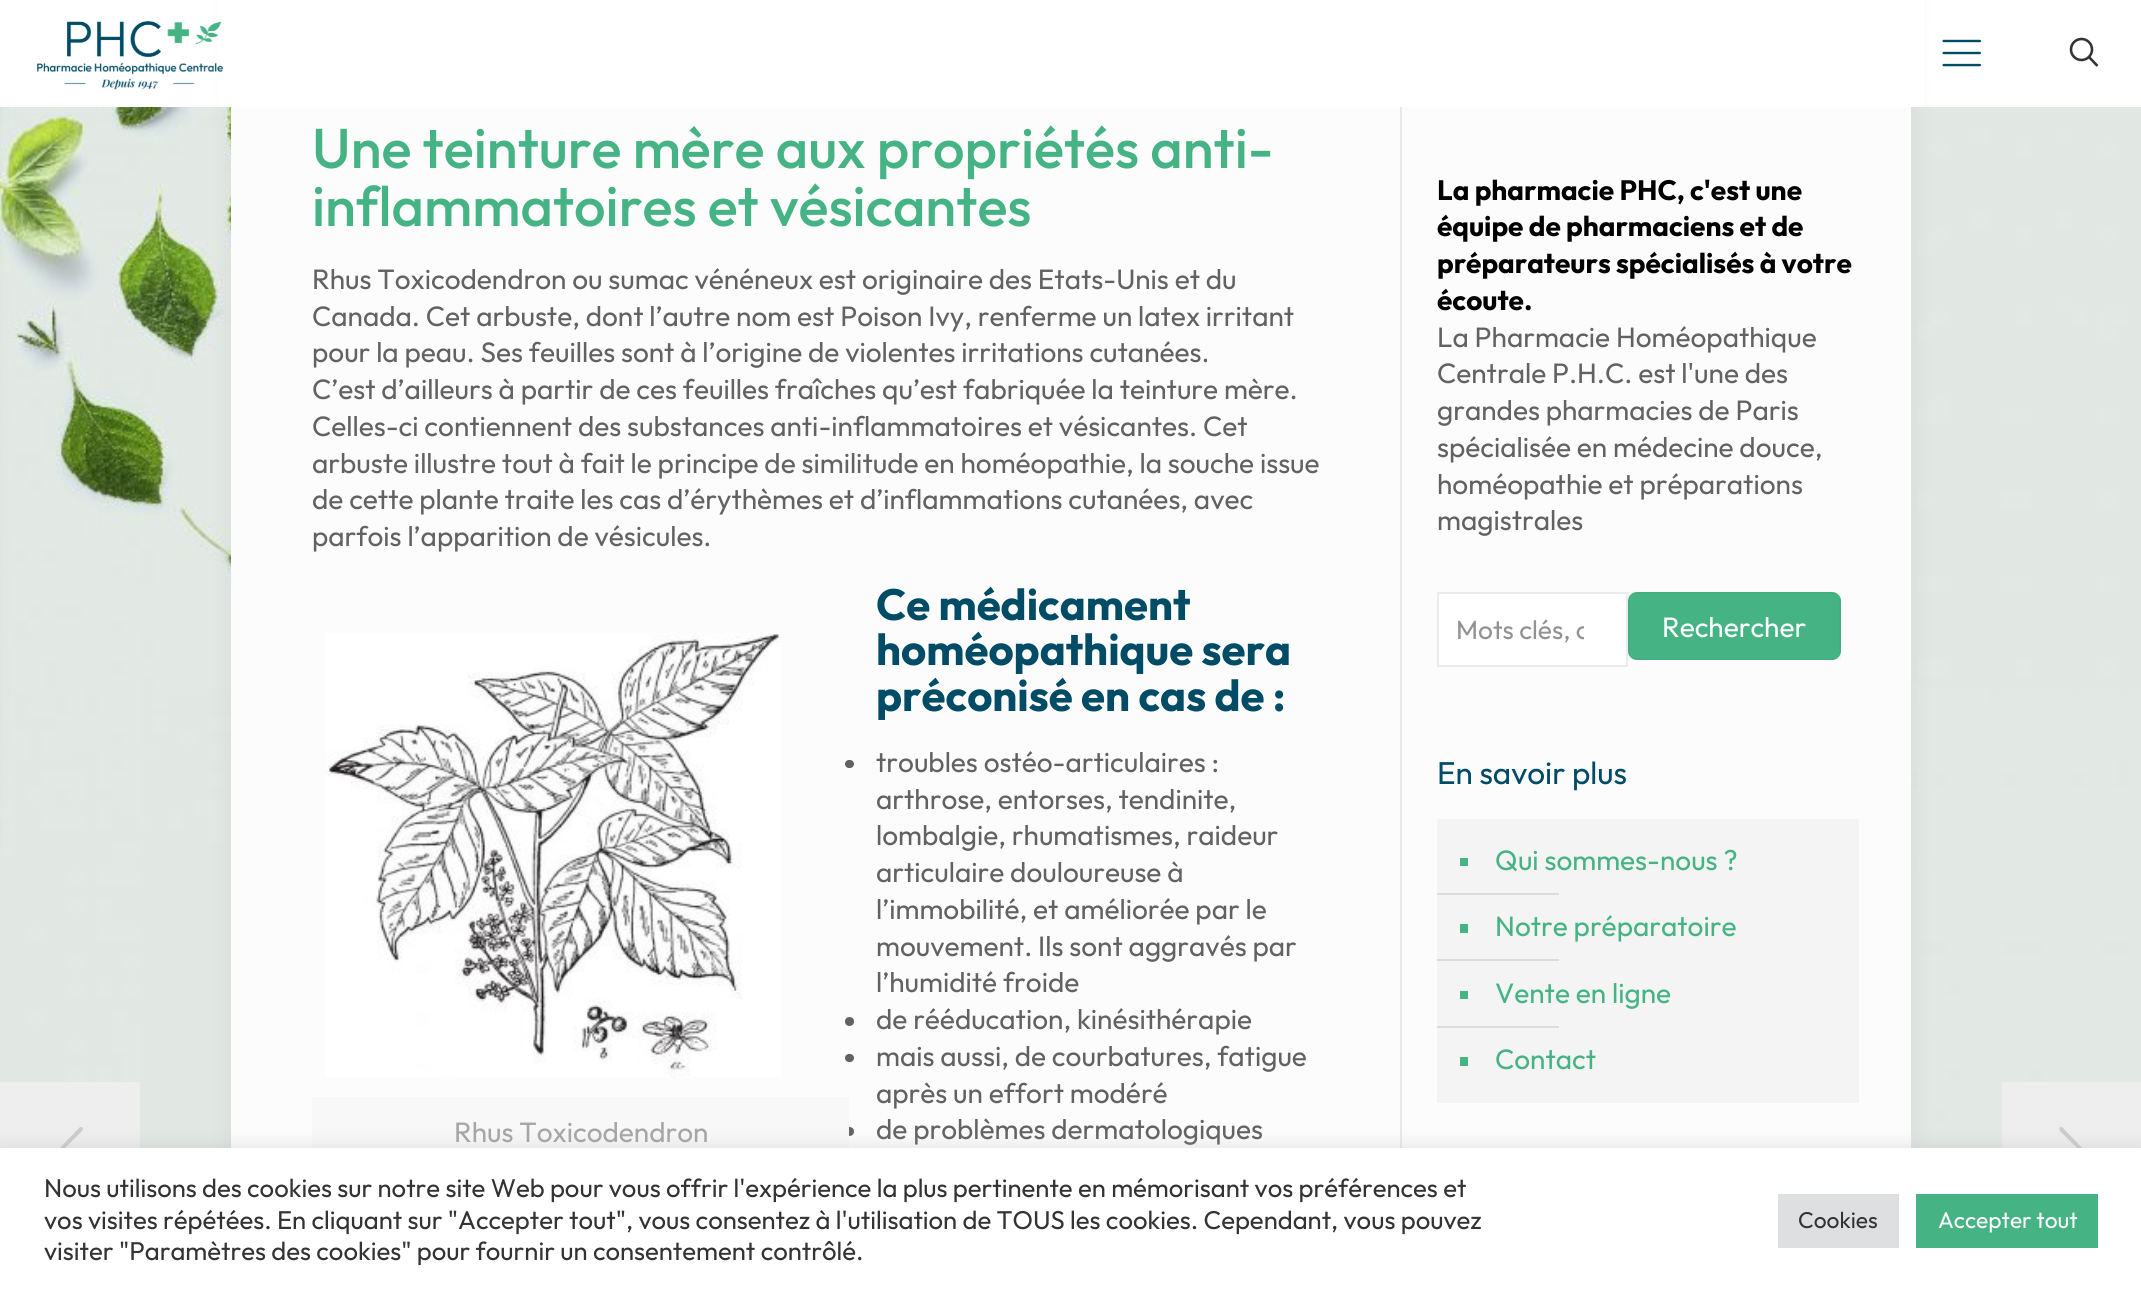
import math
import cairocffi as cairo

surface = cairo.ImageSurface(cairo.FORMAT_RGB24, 2141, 1291)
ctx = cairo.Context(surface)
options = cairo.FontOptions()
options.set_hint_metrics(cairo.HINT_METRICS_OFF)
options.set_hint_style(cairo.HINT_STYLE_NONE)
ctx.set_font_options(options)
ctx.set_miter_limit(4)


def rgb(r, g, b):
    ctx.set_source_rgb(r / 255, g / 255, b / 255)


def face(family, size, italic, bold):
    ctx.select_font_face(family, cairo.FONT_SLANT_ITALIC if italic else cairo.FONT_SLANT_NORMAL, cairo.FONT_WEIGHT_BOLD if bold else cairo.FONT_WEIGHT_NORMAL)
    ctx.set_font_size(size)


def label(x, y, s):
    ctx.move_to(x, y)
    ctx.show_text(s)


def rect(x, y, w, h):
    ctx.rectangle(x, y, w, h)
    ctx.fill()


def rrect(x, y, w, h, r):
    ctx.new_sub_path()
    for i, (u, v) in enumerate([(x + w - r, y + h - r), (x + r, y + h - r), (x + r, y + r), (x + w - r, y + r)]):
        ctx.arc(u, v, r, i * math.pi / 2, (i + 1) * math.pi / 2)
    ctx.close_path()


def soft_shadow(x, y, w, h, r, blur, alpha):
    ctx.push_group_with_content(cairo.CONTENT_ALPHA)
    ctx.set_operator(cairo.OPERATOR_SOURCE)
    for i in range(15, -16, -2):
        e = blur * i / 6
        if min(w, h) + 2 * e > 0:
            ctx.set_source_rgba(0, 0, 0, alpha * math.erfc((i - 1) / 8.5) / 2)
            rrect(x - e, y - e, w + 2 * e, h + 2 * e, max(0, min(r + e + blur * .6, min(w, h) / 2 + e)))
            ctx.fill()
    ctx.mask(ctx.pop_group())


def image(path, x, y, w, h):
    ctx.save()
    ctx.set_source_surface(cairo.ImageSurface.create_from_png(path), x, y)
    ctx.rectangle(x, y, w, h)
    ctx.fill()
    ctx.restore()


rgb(255, 255, 255)
ctx.paint()
image('image0.png', 0, 107, 2141, 1041)
rgb(0, 0, 0)
soft_shadow(231, -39, 1680, 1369, 0, 13, 0.06)
rgb(255, 255, 255)
rect(218, 0, 1706, 107)
image('image1.png', 37, 21, 187, 69)
image('image2.png', 1942, 39, 39, 28)
ctx.arc(2081.5, 49.5, 10.5, 0, 2 * math.pi)
rgb(51, 51, 51)
ctx.set_line_width(2.6)
ctx.stroke()
ctx.new_path()
ctx.move_to(2089, 57)
ctx.line_to(2097.5, 66)
ctx.stroke()
rgb(238, 238, 238)
rect(0, 1082, 140, 66)
rgb(204, 204, 204)
ctx.new_path()
ctx.move_to(82, 1172)
ctx.line_to(83, 1174)
ctx.curve_to(82, 1178, 76, 1171, 76, 1171)
ctx.line_to(57, 1152)
ctx.line_to(57, 1151)
ctx.line_to(80, 1127)
ctx.line_to(81, 1127)
ctx.curve_to(86, 1128, 80, 1133, 79, 1134)
ctx.line_to(62, 1151)
ctx.close_path()
ctx.fill()
rgb(252, 252, 252)
rect(231, 107, 1680, 1041)
face('Outfit Medium', 56, 0, 0)
rgb(69, 179, 132)
label(312, 168, 'Une teinture mère aux propriétés anti-')
label(312, 226, 'inflammatoires et vésicantes')
face('Outfit', 28, 0, 0)
rgb(98, 98, 98)
label(312, 289, 'Rhus Toxicodendron ou sumac vénéneux est originaire des Etats-Unis et du')
label(312, 326, 'Canada. Cet arbuste, dont l’autre nom est Poison Ivy, renferme un latex irritant')
label(312, 362, 'pour la peau. Ses feuilles sont à l’origine de violentes irritations cutanées.')
label(312, 399, 'C’est d’ailleurs à partir de ces feuilles fraîches qu’est fabriquée la teinture mère.')
label(312, 436, 'Celles-ci contiennent des substances anti-inflammatoires et vésicantes. Cet')
label(312, 473, 'arbuste illustre tout à fait le principe de similitude en homéopathie, la souche issue')
label(312, 509, 'de cette plante traite les cas d’érythèmes et d’inflammations cutanées, avec')
label(312, 546, 'parfois l’apparition de vésicules.')
face('Outfit', 43.75, 0, 1)
rgb(0, 75, 101)
label(876, 620, 'Ce médicament')
label(876, 665, 'homéopathique sera')
label(876, 711, 'préconisé en cas de :')
image('image3.png', 325, 633, 456, 444)
rgb(98, 98, 98)
ctx.arc(849.5, 1131.5, 4.5, 0, 2 * math.pi)
ctx.fill()
rgb(248, 248, 248)
rect(312, 1097, 537, 51)
face('Outfit', 28, 0, 0)
rgb(166, 166, 166)
label(454, 1142, 'Rhus Toxicodendron')
rgb(98, 98, 98)
rrect(845, 760, 9, 8, 4)
ctx.fill()
label(876, 772, 'troubles ostéo-articulaires :')
label(876, 809, 'arthrose, entorses, tendinite,')
label(876, 845, 'lombalgie, rhumatismes, raideur')
label(876, 882, 'articulaire douloureuse à')
label(876, 919, 'l’immobilité, et améliorée par le')
label(876, 956, 'mouvement. Ils sont aggravés par')
label(876, 992, 'l’humidité froide')
ctx.new_path()
ctx.arc(849.5, 1021.5, 4.5, 0, 2 * math.pi)
ctx.fill()
label(876, 1029, 'de rééducation, kinésithérapie')
rrect(845, 1054, 9, 8, 4)
ctx.fill()
label(876, 1066, 'mais aussi, de courbatures, fatigue')
label(876, 1103, 'après un effort modéré')
label(876, 1139, 'de problèmes dermatologiques')
rgb(232, 232, 232)
rect(1400, 107, 2, 1041)
face('Outfit', 28, 0, 1)
rgb(0, 0, 0)
label(1437, 200, 'La pharmacie PHC, c\'est une')
label(1437, 236, 'équipe de pharmaciens et de')
label(1437, 273, 'préparateurs spécialisés à votre')
label(1437, 310, 'écoute.')
face('Outfit', 28, 0, 0)
rgb(98, 98, 98)
label(1437, 347, 'La Pharmacie Homéopathique')
label(1437, 383, 'Centrale P.H.C. est l\'une des')
label(1437, 420, 'grandes pharmacies de Paris')
label(1437, 457, 'spécialisée en médecine douce,')
label(1437, 494, 'homéopathie et préparations')
label(1437, 530, 'magistrales')
rgb(255, 255, 255)
ctx.rectangle(1438, 593, 189, 73)
ctx.fill_preserve()
rgb(235, 235, 235)
ctx.set_line_width(2)
ctx.stroke()
ctx.save()
ctx.rectangle(1456, 613, 128, 33)
ctx.clip()
face('Outfit', 26.25, 0, 0)
rgb(146, 146, 146)
label(1456, 639, 'Mots clés, c')
ctx.restore()
rgb(69, 179, 132)
rrect(1628, 592, 213, 68, 9)
ctx.fill()
ctx.rectangle(1629, 593, 211, 66)
ctx.set_source_rgba(0, 0, 0, 0.03)
ctx.stroke()
rgb(255, 255, 255)
label(1662, 637, 'Rechercher')
face('Outfit', 31.5, 0, 0)
rgb(0, 75, 101)
label(1437, 784, 'En savoir plus')
rgb(244, 244, 244)
rect(1437, 819, 422, 284)
rgb(69, 179, 132)
rect(1460, 858, 8, 8)
face('Outfit', 28, 0, 0)
label(1495, 870, 'Qui sommes-nous ?')
rgb(220, 220, 220)
rect(1437, 893, 122, 2)
rgb(69, 179, 132)
rect(1460, 924, 8, 9)
label(1495, 936, 'Notre préparatoire')
rgb(220, 220, 220)
rect(1437, 959, 122, 2)
rgb(69, 179, 132)
rect(1460, 991, 8, 8)
label(1495, 1003, 'Vente en ligne')
rgb(220, 220, 220)
rect(1437, 1026, 122, 2)
rgb(69, 179, 132)
rect(1460, 1057, 8, 9)
label(1495, 1069, 'Contact')
rgb(238, 238, 238)
rect(2002, 1082, 139, 66)
rgb(204, 204, 204)
ctx.new_path()
ctx.move_to(2060, 1172)
ctx.line_to(2080, 1151)
ctx.line_to(2063, 1134)
ctx.curve_to(2062, 1133, 2056, 1128, 2061, 1127)
ctx.line_to(2062, 1127)
ctx.line_to(2085, 1151)
ctx.line_to(2085, 1152)
ctx.line_to(2066, 1171)
ctx.curve_to(2066, 1171, 2060, 1178, 2059, 1174)
ctx.close_path()
ctx.fill()
rgb(172, 171, 171)
soft_shadow(0, 1146, 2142, 144, 0, 9, 0.3)
rgb(255, 255, 255)
rect(0, 1148, 2141, 143)
face('Outfit', 25.67, 0, 0)
rgb(51, 51, 51)
label(44, 1197, 'Nous utilisons des cookies sur notre site Web pour vous offrir l\'expérience la plus pertinente en mémorisant vos préférences et')
label(44, 1229, 'vos visites répétées. En cliquant sur "Accepter tout", vous consentez à l\'utilisation de TOUS les cookies. Cependant, vous pouvez')
label(44, 1260, 'visiter "Paramètres des cookies" pour fournir un consentement contrôlé.')
rgb(222, 223, 224)
rect(1778, 1194, 121, 54)
face('Outfit', 22.75, 0, 0)
rgb(51, 51, 51)
label(1798, 1228, 'Cookies')
rgb(69, 179, 132)
rect(1916, 1194, 182, 54)
rgb(255, 255, 255)
label(1938, 1228, 'Accepter tout')
surface.write_to_png('render.png')
